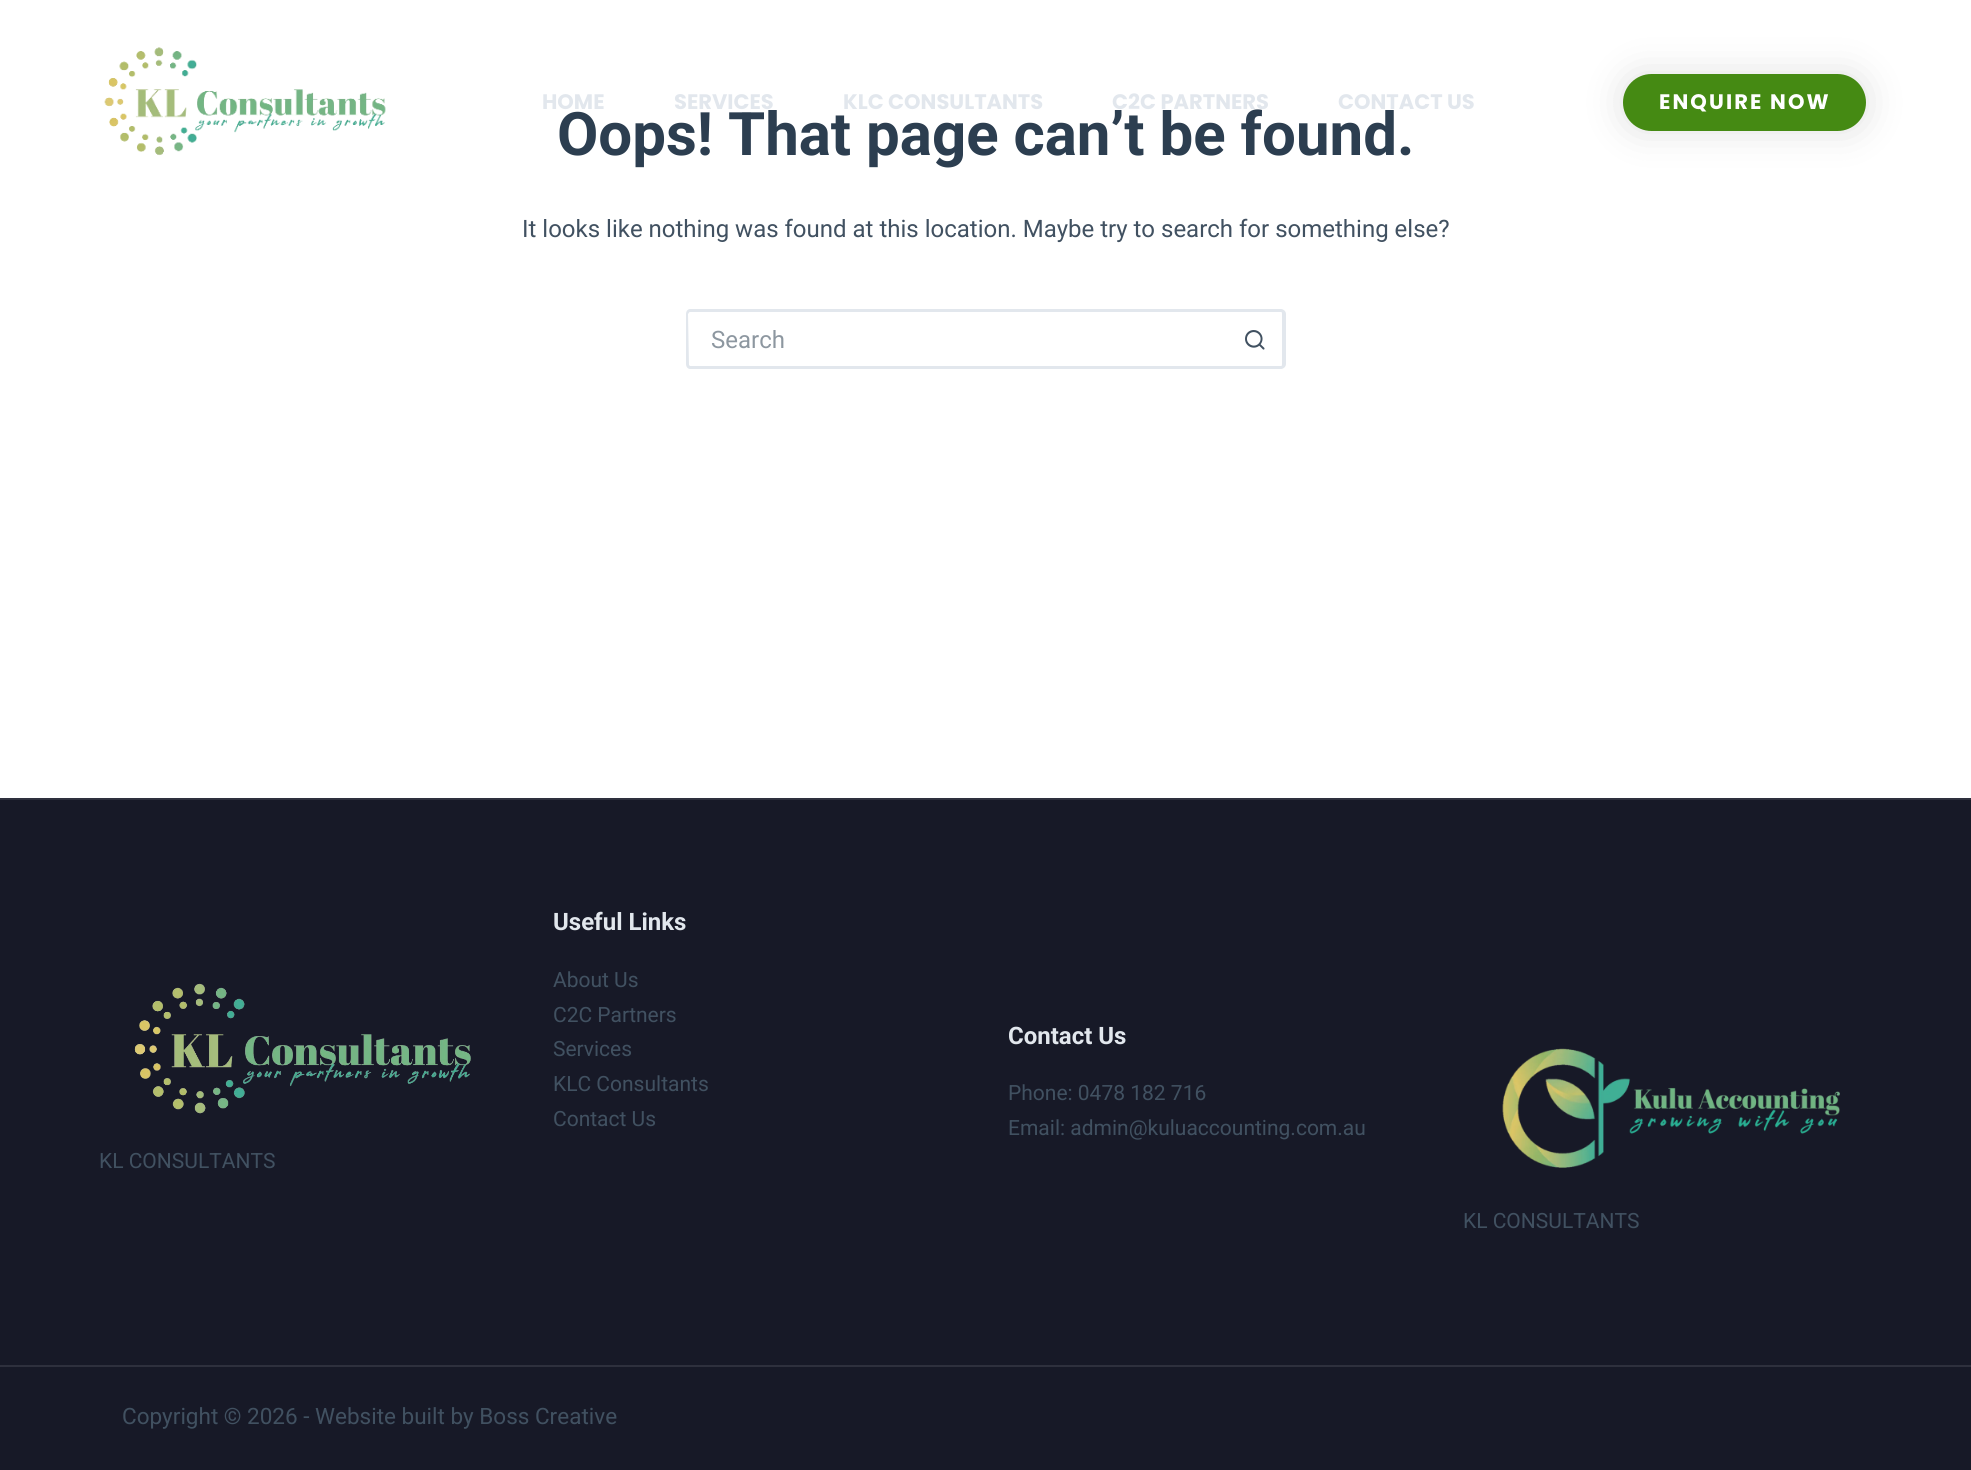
import math
import cairocffi as cairo

surface = cairo.ImageSurface(cairo.FORMAT_RGB24, 1971, 1470)
ctx = cairo.Context(surface)
options = cairo.FontOptions()
options.set_hint_metrics(cairo.HINT_METRICS_OFF)
options.set_hint_style(cairo.HINT_STYLE_NONE)
ctx.set_font_options(options)
ctx.set_miter_limit(4)


def rgb(r, g, b):
    ctx.set_source_rgb(r / 255, g / 255, b / 255)


def face(family, size, italic, bold):
    ctx.select_font_face(family, cairo.FONT_SLANT_ITALIC if italic else cairo.FONT_SLANT_NORMAL, cairo.FONT_WEIGHT_BOLD if bold else cairo.FONT_WEIGHT_NORMAL)
    ctx.set_font_size(size)


def label(x, y, s):
    ctx.move_to(x, y)
    ctx.show_text(s)


def tracked(x, y, s, letter, word):
    ctx.move_to(x, y)
    for ch in s:
        ctx.show_text(ch)
        ctx.rel_move_to(letter + word * (ch == ' '), 0)


def rect(x, y, w, h):
    ctx.rectangle(x, y, w, h)
    ctx.fill()


def rrect(x, y, w, h, r):
    ctx.new_sub_path()
    for i, (u, v) in enumerate([(x + w - r, y + h - r), (x + r, y + h - r), (x + r, y + r), (x + w - r, y + r)]):
        ctx.arc(u, v, r, i * math.pi / 2, (i + 1) * math.pi / 2)
    ctx.close_path()


def soft_shadow(x, y, w, h, r, blur, alpha):
    ctx.push_group_with_content(cairo.CONTENT_ALPHA)
    ctx.set_operator(cairo.OPERATOR_SOURCE)
    for i in range(15, -16, -2):
        e = blur * i / 6
        if min(w, h) + 2 * e > 0:
            ctx.set_source_rgba(0, 0, 0, alpha * math.erfc((i - 1) / 8.5) / 2)
            rrect(x - e, y - e, w + 2 * e, h + 2 * e, max(0, min(r + e + blur * .6, min(w, h) / 2 + e)))
            ctx.fill()
    ctx.mask(ctx.pop_group())


def image(path, x, y, w, h):
    ctx.save()
    ctx.set_source_surface(cairo.ImageSurface.create_from_png(path), x, y)
    ctx.rectangle(x, y, w, h)
    ctx.fill()
    ctx.restore()


rgb(255, 255, 255)
ctx.paint()
image('image0.png', 104, 47, 282, 109)
face('Poppins', 21, 0, 1)
rgb(226, 231, 237)
label(542, 109, 'HOME')
label(674, 109, 'SERVICES')
label(843, 109, 'KLC CONSULTANTS')
label(1112, 109, 'C2C PARTNERS')
label(1338, 109, 'CONTACT US')
rgb(0, 0, 0)
soft_shadow(1623, 74, 243, 57, 28.5, 20, 0.12)
rgb(69, 138, 19)
rrect(1623, 74, 243, 57, 28.5)
ctx.fill()
rgb(255, 255, 255)
tracked(1659, 109, 'ENQUIRE NOW', 2.1, 0)
face('Roboto', 60, 0, 1)
rgb(44, 62, 80)
label(557, 155, 'Oops! That page can’t be found.')
face('Roboto', 24, 0, 0)
rgb(65, 81, 97)
label(522, 237, 'It looks like nothing was found at this location. Maybe try to search for something else?')
rgb(226, 231, 237)
ctx.set_fill_rule(cairo.FILL_RULE_EVEN_ODD)
ctx.new_path()
ctx.move_to(690, 309)
ctx.line_to(1226, 309)
ctx.line_to(1226, 369)
ctx.line_to(690, 369)
ctx.curve_to(688, 369, 686, 367, 686, 364)
ctx.line_to(686, 314)
ctx.curve_to(686, 311, 688, 309, 690, 309)
ctx.close_path()
ctx.move_to(690, 312)
ctx.line_to(1226, 312)
ctx.line_to(1226, 366)
ctx.line_to(690, 366)
ctx.line_to(689, 365)
ctx.line_to(688, 314)
ctx.curve_to(689, 313, 689, 312, 690, 312)
ctx.close_path()
ctx.fill()
rgb(141, 151, 160)
label(711, 348, 'Search')
rgb(226, 231, 237)
ctx.new_path()
ctx.move_to(1226, 309)
ctx.line_to(1281, 309)
ctx.curve_to(1283, 309, 1286, 311, 1286, 314)
ctx.line_to(1286, 364)
ctx.curve_to(1286, 367, 1283, 369, 1281, 369)
ctx.line_to(1226, 369)
ctx.close_path()
ctx.move_to(1226, 312)
ctx.line_to(1281, 312)
ctx.curve_to(1282, 312, 1282, 313, 1282, 314)
ctx.line_to(1282, 364)
ctx.curve_to(1282, 365, 1282, 366, 1281, 366)
ctx.line_to(1226, 366)
ctx.close_path()
ctx.fill()
image('image1.png', 1245, 330, 20, 20)
rgb(23, 25, 39)
rect(0, 800, 1971, 670)
rgb(46, 48, 61)
rect(0, 798, 1971, 2)
face('Roboto', 24, 0, 1)
rgb(226, 231, 237)
label(553, 930, 'Useful Links')
face('Roboto', 21, 0, 0)
rgb(65, 81, 97)
label(553, 987, 'About Us')
label(553, 1022, 'C2C Partners')
label(553, 1056, 'Services')
label(553, 1091, 'KLC Consultants')
label(553, 1126, 'Contact Us')
face('Roboto', 24, 0, 1)
rgb(226, 231, 237)
label(1008, 1044, 'Contact Us')
face('Roboto', 21, 0, 0)
rgb(65, 81, 97)
label(1008, 1100, 'Phone: 0478 182 716')
label(1008, 1135, 'Email: admin@kuluaccounting.com.au')
image('image2.png', 134, 983, 337, 131)
label(99, 1168, 'KL CONSULTANTS')
image('image3.png', 1502, 1048, 338, 120)
label(1463, 1228, 'KL CONSULTANTS')
rgb(46, 48, 61)
rect(0, 1365, 1971, 2)
face('Roboto', 22.5, 0, 0)
rgb(65, 81, 97)
label(122, 1424, 'Copyright © 2026 - Website built by Boss Creative')
surface.write_to_png('render.png')
